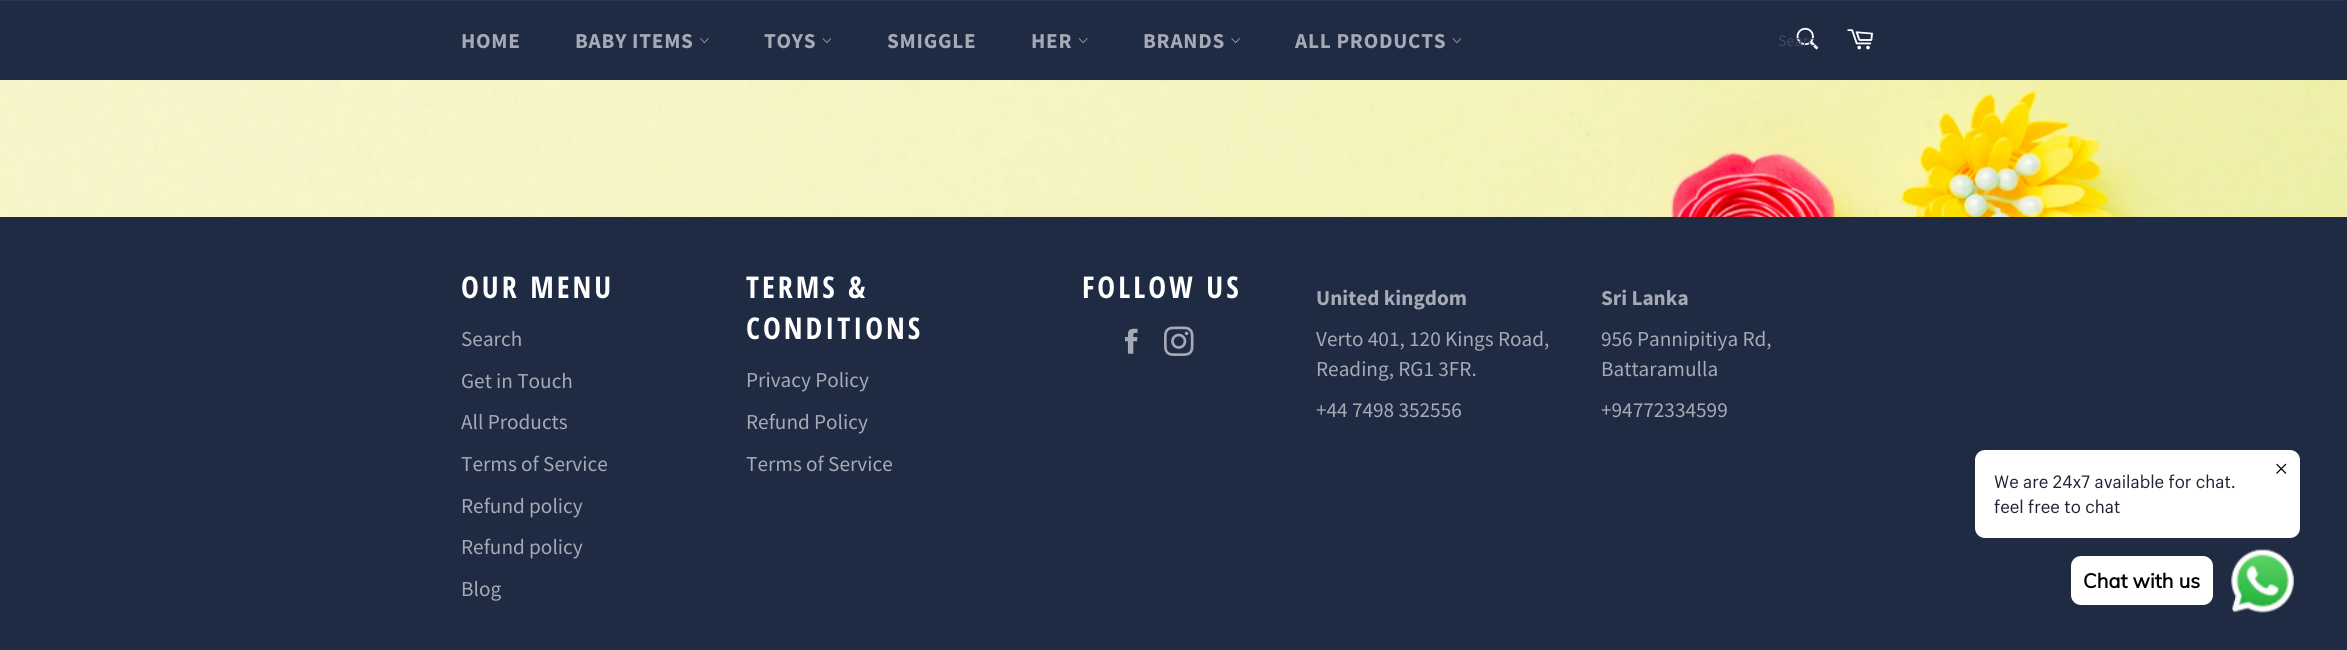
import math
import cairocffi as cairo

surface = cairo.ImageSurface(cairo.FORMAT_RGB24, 2347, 650)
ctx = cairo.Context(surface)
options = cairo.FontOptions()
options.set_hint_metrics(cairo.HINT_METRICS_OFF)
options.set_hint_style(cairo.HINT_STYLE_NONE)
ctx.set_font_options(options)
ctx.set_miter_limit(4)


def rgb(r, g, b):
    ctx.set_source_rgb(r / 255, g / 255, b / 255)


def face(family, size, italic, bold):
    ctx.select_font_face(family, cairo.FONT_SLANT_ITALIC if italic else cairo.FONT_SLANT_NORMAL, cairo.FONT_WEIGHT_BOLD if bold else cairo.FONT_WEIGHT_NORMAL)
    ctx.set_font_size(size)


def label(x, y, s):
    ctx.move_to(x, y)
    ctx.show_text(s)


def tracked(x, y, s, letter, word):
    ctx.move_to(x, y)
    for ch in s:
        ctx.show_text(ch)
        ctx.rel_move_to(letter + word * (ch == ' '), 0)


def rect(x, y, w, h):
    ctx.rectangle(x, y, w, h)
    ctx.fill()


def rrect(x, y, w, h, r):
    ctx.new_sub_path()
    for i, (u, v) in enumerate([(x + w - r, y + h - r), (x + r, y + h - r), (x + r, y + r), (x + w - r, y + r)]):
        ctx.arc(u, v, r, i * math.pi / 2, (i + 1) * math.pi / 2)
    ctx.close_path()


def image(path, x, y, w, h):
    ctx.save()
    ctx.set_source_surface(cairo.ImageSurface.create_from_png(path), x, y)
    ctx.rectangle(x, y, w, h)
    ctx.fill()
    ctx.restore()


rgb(31, 42, 67)
ctx.paint()
rgb(39, 53, 84)
rect(0, 0, 2347, 1)
face('Source Sans Pro', 21.25, 0, 1)
rgb(165, 170, 180)
tracked(461, 48, 'HOME', 0.75, 0)
tracked(575, 48, 'BABY ITEMS', 0.75, 0)
image('image0.png', 700, 38, 9, 6)
tracked(764, 48, 'TOYS', 0.75, 0)
image('image1.png', 822, 38, 10, 6)
tracked(887, 48, 'SMIGGLE', 0.75, 0)
tracked(1031, 48, 'HER', 0.75, 0)
image('image2.png', 1078, 38, 10, 6)
tracked(1143, 48, 'BRANDS', 0.75, 0)
image('image3.png', 1231, 38, 9, 6)
tracked(1295, 48, 'ALL PRODUCTS', 0.75, 0)
image('image1.png', 1452, 38, 10, 6)
image('image4.png', 1796, 27, 23, 23)
face('Source Sans Pro', 16, 0, 0)
rgb(63, 72, 94)
label(1778, 46, 'Searc')
image('image5.png', 1847, 29, 26, 21)
image('image6.png', 0, 80, 2347, 137)
face('Open Sans Condensed', 30, 0, 1)
rgb(255, 255, 255)
tracked(461, 298, 'OUR MENU', 3, 0)
face('Source Sans Pro', 21.25, 0, 0)
rgb(165, 170, 180)
label(461, 346, 'Search')
label(461, 388, 'Get in Touch')
label(461, 429, 'All Products')
label(461, 471, 'Terms of Service')
label(461, 513, 'Refund policy')
label(461, 554, 'Refund policy')
label(461, 596, 'Blog')
face('Open Sans Condensed', 30, 0, 1)
rgb(255, 255, 255)
tracked(746, 298, 'TERMS &', 3, 0)
tracked(746, 339, 'CONDITIONS', 3, 0)
face('Source Sans Pro', 21.25, 0, 0)
rgb(165, 170, 180)
label(746, 387, 'Privacy Policy')
label(746, 429, 'Refund Policy')
label(746, 471, 'Terms of Service')
face('Open Sans Condensed', 30, 0, 1)
rgb(255, 255, 255)
tracked(1082, 298, 'FOLLOW US', 3, 0)
image('image7.png', 1125, 328, 13, 26)
image('image8.png', 1164, 326, 30, 30)
face('Source Sans Pro', 21.25, 0, 1)
rgb(165, 170, 180)
label(1316, 305, 'United kingdom')
face('Source Sans Pro', 21.25, 0, 0)
label(1316, 346, 'Verto 401, 120 Kings Road,')
label(1316, 376, 'Reading, RG1 3FR.')
label(1316, 417, '+44 7498 352556')
face('Source Sans Pro', 21.25, 0, 1)
label(1601, 305, 'Sri Lanka')
face('Source Sans Pro', 21.25, 0, 0)
label(1601, 346, '956 Pannipitiya Rd,')
label(1601, 376, 'Battaramulla')
label(1601, 417, '+94772334599')
rgb(255, 255, 255)
rrect(1975, 450, 325, 88, 10)
ctx.fill()
image('image9.png', 2276, 463, 11, 11)
face('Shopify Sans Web', 17.5, 0, 0)
rgb(30, 36, 51)
label(1994, 488, 'We are 24x7 available for chat.')
label(1994, 513, 'feel free to chat')
image('image10.png', 2231, 549, 63, 64)
rgb(255, 255, 255)
rrect(2071, 556, 142, 49, 10)
ctx.fill()
face('Muli', 20, 0, 1)
rgb(0, 0, 0)
label(2083, 588, 'Chat with us')
surface.write_to_png('render.png')
